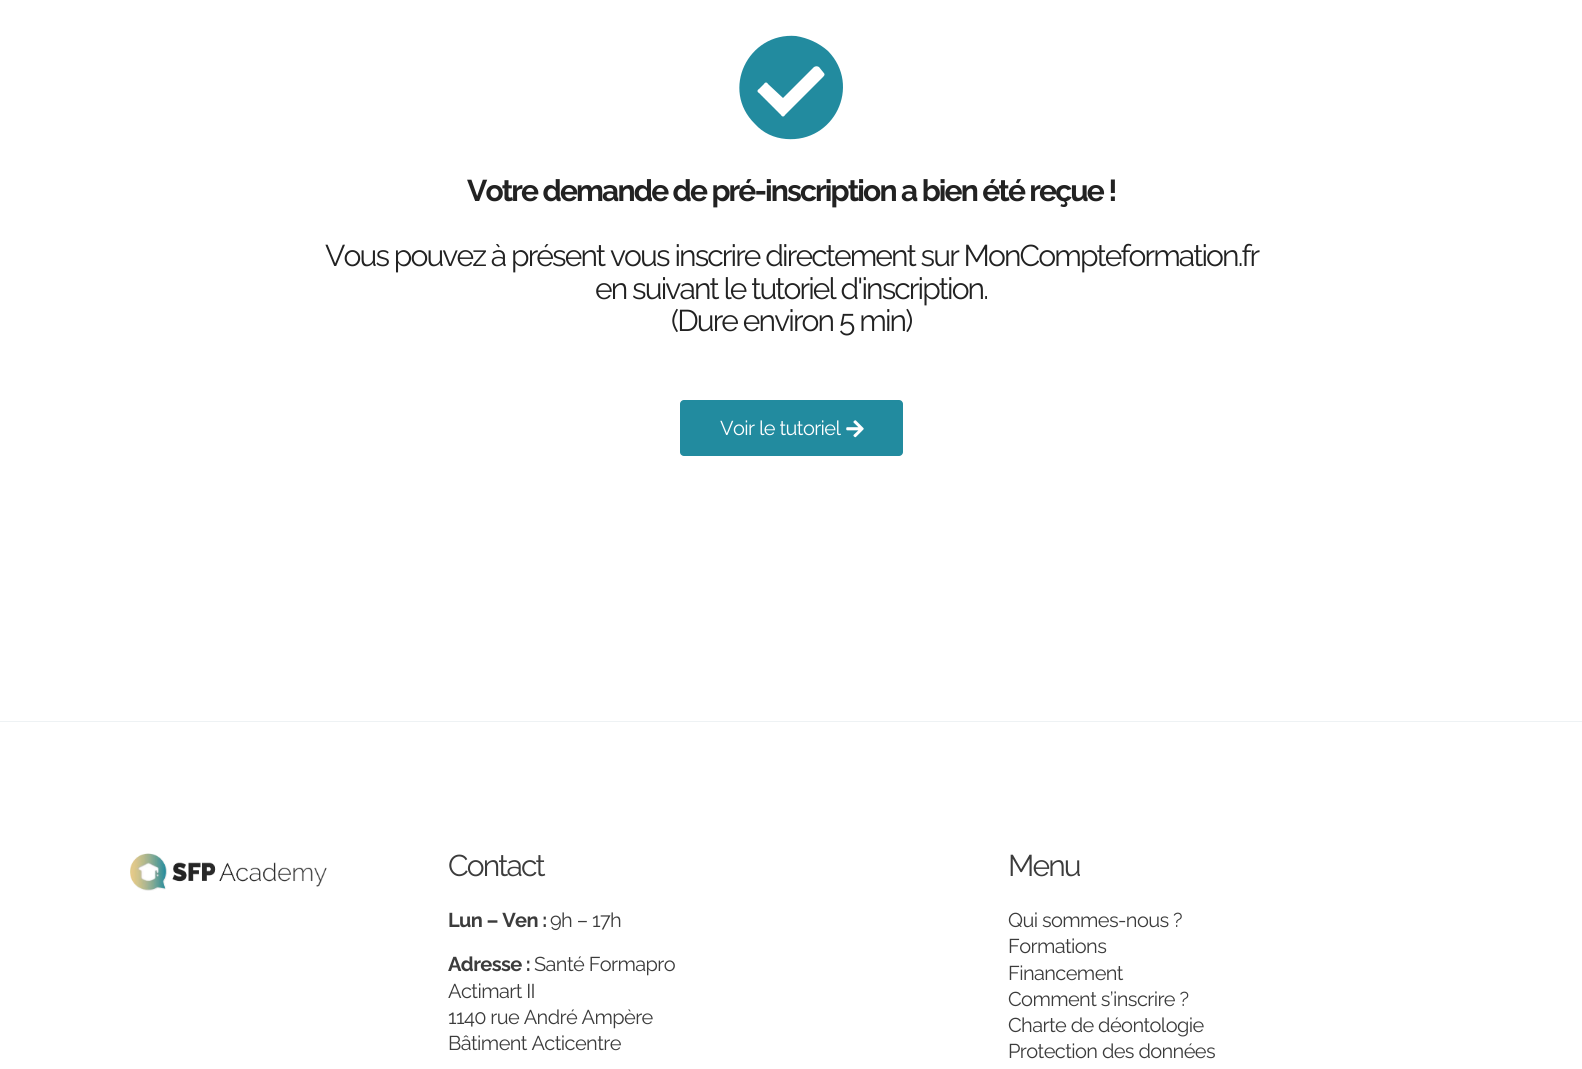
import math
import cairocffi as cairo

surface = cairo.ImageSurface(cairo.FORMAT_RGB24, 1582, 1069)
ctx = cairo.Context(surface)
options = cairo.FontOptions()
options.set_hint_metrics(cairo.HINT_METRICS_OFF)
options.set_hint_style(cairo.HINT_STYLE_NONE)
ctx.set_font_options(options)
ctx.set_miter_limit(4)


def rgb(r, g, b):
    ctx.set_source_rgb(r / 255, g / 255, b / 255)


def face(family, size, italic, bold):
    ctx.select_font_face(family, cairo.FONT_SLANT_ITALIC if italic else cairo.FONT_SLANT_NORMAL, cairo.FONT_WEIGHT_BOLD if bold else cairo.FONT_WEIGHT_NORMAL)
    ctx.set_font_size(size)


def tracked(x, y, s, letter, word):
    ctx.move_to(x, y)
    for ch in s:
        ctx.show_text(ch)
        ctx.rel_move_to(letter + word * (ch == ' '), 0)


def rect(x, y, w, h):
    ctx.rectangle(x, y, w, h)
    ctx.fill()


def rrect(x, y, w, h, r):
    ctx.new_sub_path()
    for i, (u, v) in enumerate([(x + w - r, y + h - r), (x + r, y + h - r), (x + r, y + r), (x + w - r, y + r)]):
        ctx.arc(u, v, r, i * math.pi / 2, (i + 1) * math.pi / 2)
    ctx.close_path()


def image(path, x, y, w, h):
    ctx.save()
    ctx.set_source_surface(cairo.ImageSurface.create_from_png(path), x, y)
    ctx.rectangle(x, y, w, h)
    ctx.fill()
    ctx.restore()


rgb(255, 255, 255)
ctx.paint()
rgb(34, 139, 159)
ctx.new_path()
ctx.move_to(828, 51)
ctx.curve_to(862, 86, 834, 143, 786, 139)
ctx.curve_to(774, 138, 763, 133, 755, 124)
ctx.curve_to(720, 90, 748, 32, 796, 36)
ctx.curve_to(808, 38, 819, 43, 828, 51)
ctx.close_path()
ctx.move_to(785, 115)
ctx.line_to(823, 77)
ctx.curve_to(825, 75, 825, 74, 823, 72)
ctx.line_to(819, 67)
ctx.curve_to(817, 66, 816, 66, 814, 67)
ctx.line_to(783, 98)
ctx.line_to(768, 84)
ctx.curve_to(767, 82, 765, 82, 764, 84)
ctx.line_to(759, 89)
ctx.curve_to(757, 90, 757, 92, 759, 93)
ctx.line_to(781, 115)
ctx.curve_to(782, 117, 784, 117, 785, 115)
ctx.close_path()
ctx.fill()
face('Raleway', 30, 0, 1)
rgb(34, 34, 34)
tracked(467, 201, 'Votre demande de pré-inscription a bien été reçue !', -1.88, 0)
face('Raleway', 30, 0, 0)
tracked(325, 266, 'Vous pouvez à présent vous inscrire directement sur MonCompteformation.fr', -1.88, 0)
tracked(595, 299, 'en suivant le tutoriel d\'inscription.', -1.88, 0)
tracked(671, 331, '(Dure environ 5 min)', -1.88, 0)
rgb(34, 139, 159)
rrect(680, 400, 223, 56, 4)
ctx.fill()
face('Raleway', 20, 0, 0)
rgb(255, 255, 255)
tracked(720, 435, 'Voir le tutoriel', -0.6, 0)
image('image0.png', 846, 420, 18, 18)
rgb(238, 242, 244)
rect(0, 721, 1582, 1)
image('image1.png', 130, 853, 197, 38)
face('Raleway', 30, 0, 0)
rgb(60, 60, 60)
tracked(448, 876, 'Contact', -1.88, 0)
face('Raleway', 20, 0, 1)
tracked(448, 927, 'Lun – Ven :', -0.6, 0)
face('Raleway', 20, 0, 0)
tracked(550, 927, '9h – 17h', -0.6, 0)
face('Raleway', 20, 0, 1)
tracked(448, 971, 'Adresse :', -0.6, 0)
face('Raleway', 20, 0, 0)
tracked(534, 971, 'Santé Formapro', -0.6, 0)
tracked(448, 998, 'Actimart II', -0.6, 0)
tracked(448, 1024, '1140 rue André Ampère', -0.6, 0)
tracked(448, 1050, 'Bâtiment Acticentre', -0.6, 0)
face('Raleway', 30, 0, 0)
tracked(1008, 876, 'Menu', -1.88, 0)
face('Raleway', 20, 0, 0)
tracked(1008, 927, 'Qui sommes-nous ?', -0.6, 0)
tracked(1008, 953, 'Formations', -0.6, 0)
tracked(1008, 980, 'Financement', -0.6, 0)
tracked(1008, 1006, 'Comment s’inscrire ?', -0.6, 0)
tracked(1008, 1032, 'Charte de déontologie', -0.6, 0)
tracked(1008, 1058, 'Protection des données', -0.6, 0)
surface.write_to_png('render.png')
